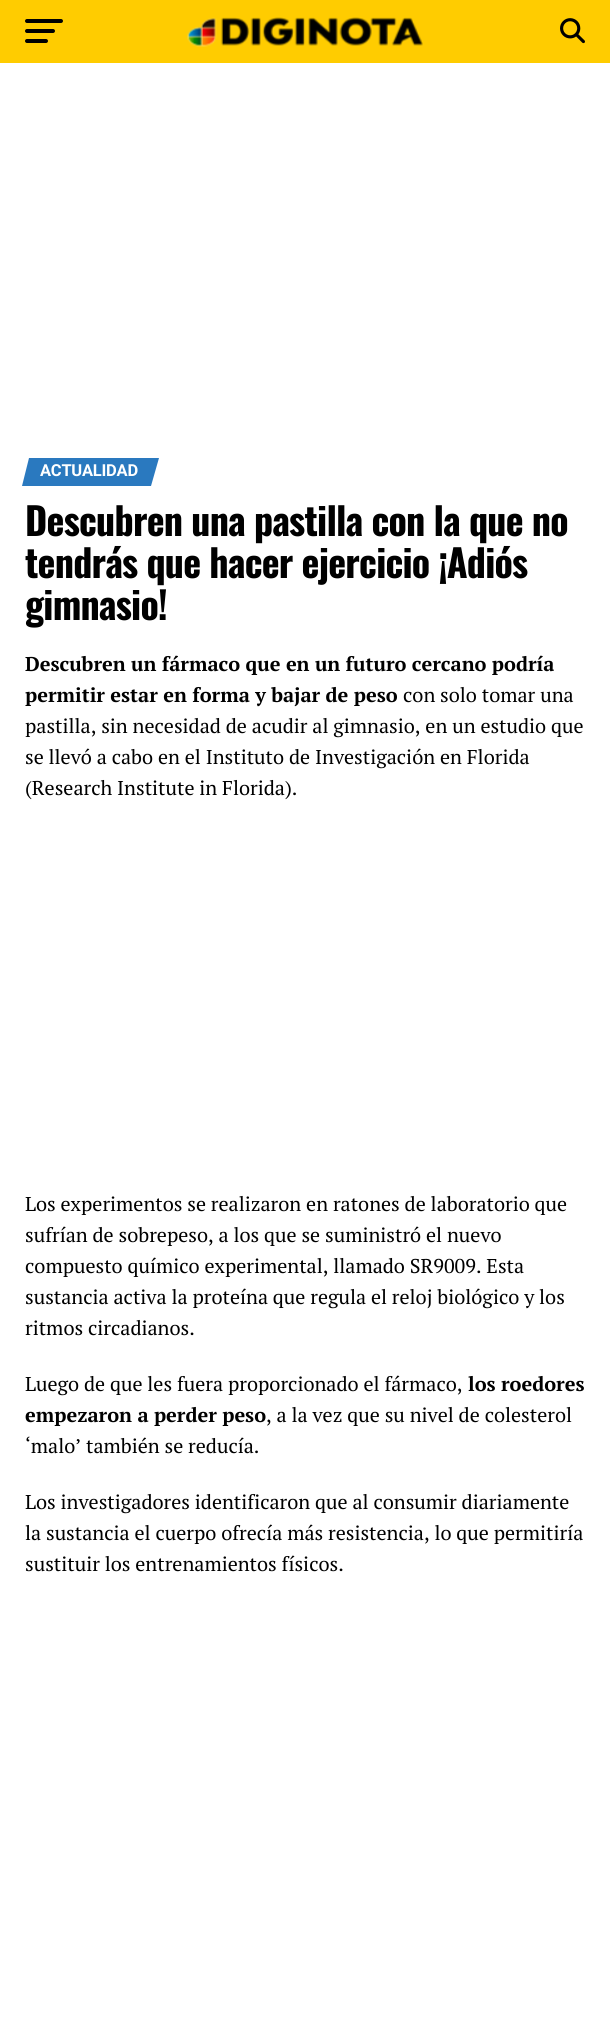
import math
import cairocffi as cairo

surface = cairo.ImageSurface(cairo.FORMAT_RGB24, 610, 2022)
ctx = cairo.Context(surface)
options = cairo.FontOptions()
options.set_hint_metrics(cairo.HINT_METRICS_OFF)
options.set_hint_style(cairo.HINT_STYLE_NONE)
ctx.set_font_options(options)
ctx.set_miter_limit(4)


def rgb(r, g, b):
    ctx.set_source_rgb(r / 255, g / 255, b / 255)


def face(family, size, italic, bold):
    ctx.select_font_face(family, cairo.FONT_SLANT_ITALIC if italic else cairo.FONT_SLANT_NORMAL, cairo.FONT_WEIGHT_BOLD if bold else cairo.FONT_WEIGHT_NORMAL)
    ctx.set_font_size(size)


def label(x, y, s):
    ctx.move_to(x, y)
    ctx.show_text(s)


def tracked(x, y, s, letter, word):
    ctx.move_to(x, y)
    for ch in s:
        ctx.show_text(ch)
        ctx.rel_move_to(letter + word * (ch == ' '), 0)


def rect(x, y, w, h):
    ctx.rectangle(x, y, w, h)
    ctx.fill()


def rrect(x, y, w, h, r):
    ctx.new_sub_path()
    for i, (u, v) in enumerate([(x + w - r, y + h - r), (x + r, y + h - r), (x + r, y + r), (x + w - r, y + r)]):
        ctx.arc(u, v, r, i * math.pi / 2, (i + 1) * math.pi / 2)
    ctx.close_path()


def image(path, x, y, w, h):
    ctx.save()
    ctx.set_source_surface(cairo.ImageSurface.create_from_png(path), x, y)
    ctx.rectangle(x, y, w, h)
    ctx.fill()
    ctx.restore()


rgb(255, 255, 255)
ctx.paint()
rgb(255, 204, 0)
rect(0, 0, 610, 63)
rgb(0, 0, 0)
rrect(25, 19, 38, 4, 2)
ctx.fill()
rrect(25, 29, 30, 4, 2)
ctx.fill()
rrect(25, 39, 23, 4, 2)
ctx.fill()
image('image0.png', 187, 17, 236, 30)
image('image1.png', 560, 18, 25, 26)
rgb(42, 121, 191)
ctx.new_path()
ctx.move_to(29, 458)
ctx.line_to(159, 458)
ctx.line_to(151, 486)
ctx.line_to(22, 486)
ctx.close_path()
ctx.fill()
face('Roboto', 16.5, 0, 1)
rgb(255, 255, 255)
tracked(40, 476, 'ACTUALIDAD', -0.25, 0)
face('Oswald', 38, 0, 1)
rgb(0, 0, 0)
tracked(25, 536, 'Descubren una pastilla con la que no', -0.75, 0)
tracked(25, 578, 'tendrás que hacer ejercicio ¡Adiós', -0.75, 0)
tracked(25, 620, 'gimnasio!', -0.75, 0)
face('PT Serif', 20, 0, 1)
label(25, 671, 'Descubren un fármaco que en un futuro cercano podría')
label(25, 702, 'permitir estar en forma y bajar de peso')
face('PT Serif', 20, 0, 0)
label(403, 702, 'con solo tomar una')
label(25, 733, 'pastilla, sin necesidad de acudir al gimnasio, en un estudio que')
label(25, 764, 'se llevó a cabo en el Instituto de Investigación en Florida')
label(25, 795, '(Research Institute in Florida).')
label(25, 1211, 'Los experimentos se realizaron en ratones de laboratorio que')
label(25, 1242, 'sufrían de sobrepeso, a los que se suministró el nuevo')
label(25, 1273, 'compuesto químico experimental, llamado SR9009. Esta')
label(25, 1304, 'sustancia activa la proteína que regula el reloj biológico y los')
label(25, 1335, 'ritmos circadianos.')
label(25, 1391, 'Luego de que les fuera proporcionado el fármaco,')
face('PT Serif', 20, 0, 1)
label(468, 1391, 'los roedores')
label(25, 1422, 'empezaron a perder peso')
face('PT Serif', 20, 0, 0)
label(266, 1422, ', a la vez que su nivel de colesterol')
label(25, 1453, '‘malo’ también se reducía.')
label(25, 1509, 'Los investigadores identificaron que al consumir diariamente')
label(25, 1540, 'la sustancia el cuerpo ofrecía más resistencia, lo que permitiría')
label(25, 1571, 'sustituir los entrenamientos físicos.')
surface.write_to_png('render.png')
